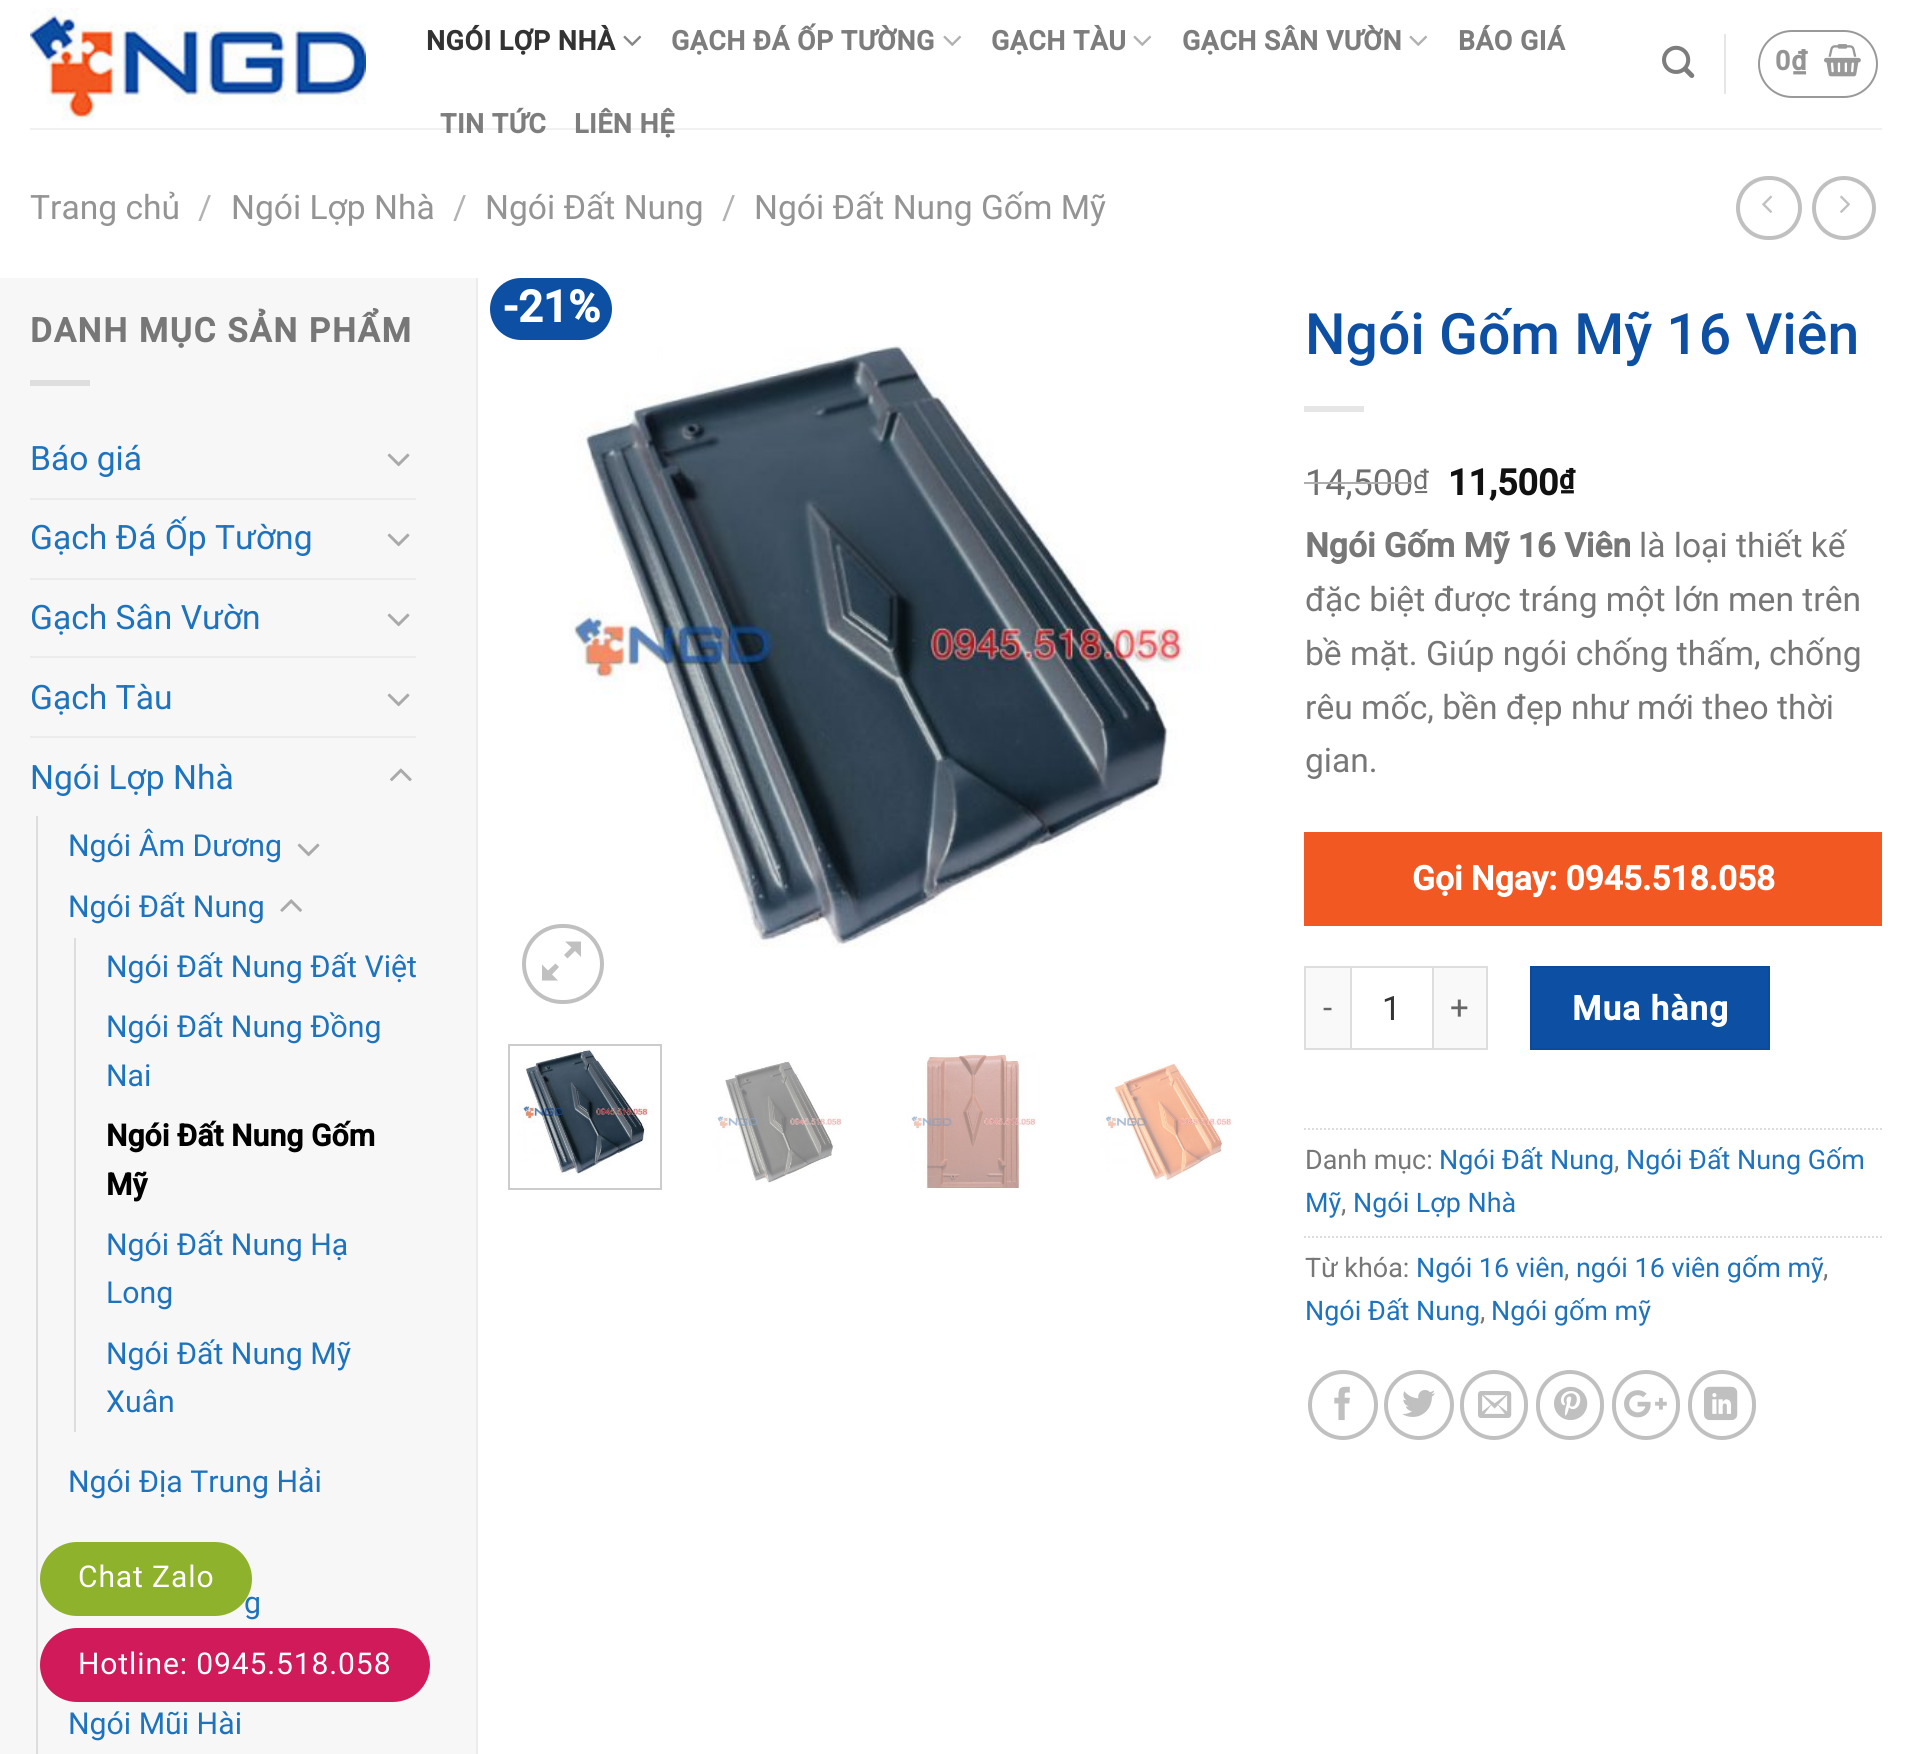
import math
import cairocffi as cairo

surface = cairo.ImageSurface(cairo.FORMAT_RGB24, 1911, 1754)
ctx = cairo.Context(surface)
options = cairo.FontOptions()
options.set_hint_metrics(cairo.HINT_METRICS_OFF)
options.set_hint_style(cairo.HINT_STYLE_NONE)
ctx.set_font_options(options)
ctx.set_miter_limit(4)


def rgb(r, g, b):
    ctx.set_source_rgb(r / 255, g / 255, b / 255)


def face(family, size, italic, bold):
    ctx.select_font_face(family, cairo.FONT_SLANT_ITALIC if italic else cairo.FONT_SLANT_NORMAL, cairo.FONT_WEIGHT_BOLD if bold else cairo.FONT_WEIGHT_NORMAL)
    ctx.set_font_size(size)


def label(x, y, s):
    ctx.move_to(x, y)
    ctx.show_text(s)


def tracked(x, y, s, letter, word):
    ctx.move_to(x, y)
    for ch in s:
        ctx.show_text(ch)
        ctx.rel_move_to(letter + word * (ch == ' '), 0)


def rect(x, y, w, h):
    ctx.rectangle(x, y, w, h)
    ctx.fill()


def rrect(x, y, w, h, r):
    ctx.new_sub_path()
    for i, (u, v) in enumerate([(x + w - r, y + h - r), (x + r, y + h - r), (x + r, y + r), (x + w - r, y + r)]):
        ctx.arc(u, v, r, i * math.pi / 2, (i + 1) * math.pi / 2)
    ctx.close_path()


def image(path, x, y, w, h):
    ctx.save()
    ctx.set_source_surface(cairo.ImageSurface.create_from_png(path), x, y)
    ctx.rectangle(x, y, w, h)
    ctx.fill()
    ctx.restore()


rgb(255, 255, 255)
ctx.paint()
image('image0.png', 30, 8, 336, 113)
face('Roboto', 26.9, 0, 1)
rgb(51, 51, 51)
tracked(426, 50, 'NGÓI LỢP NHÀ', 0.5, 0)
image('image1.png', 623, 35, 19, 11)
rgb(125, 125, 125)
tracked(671, 50, 'GẠCH ĐÁ ỐP TƯỜNG', 0.5, 0)
image('image2.png', 943, 35, 19, 11)
tracked(991, 50, 'GẠCH TÀU', 0.5, 0)
image('image2.png', 1133, 35, 19, 11)
tracked(1182, 50, 'GẠCH SÂN VƯỜN', 0.5, 0)
image('image2.png', 1409, 35, 19, 11)
tracked(1458, 50, 'BÁO GIÁ', 0.5, 0)
tracked(440, 133, 'TIN TỨC', 0.5, 0)
tracked(574, 133, 'LIÊN HỆ', 0.5, 0)
image('image3.png', 1662, 45, 33, 33)
rgb(230, 230, 230)
rect(1724, 34, 2, 60)
rrect(1759, 31, 118, 66, 33)
rgb(153, 153, 153)
ctx.stroke()
rgb(148, 148, 148)
tracked(1775, 70, '0₫', 1, 0)
image('image4.png', 1824, 44, 37, 33)
ctx.set_source_rgba(0.467, 0.467, 0.467, 0.1)
rect(30, 128, 1852, 2)
face('Roboto', 33.6, 0, 0)
rgb(148, 148, 148)
label(30, 219, 'Trang chủ')
rgb(178, 178, 178)
label(198, 219, '/')
rgb(148, 148, 148)
label(231, 219, 'Ngói Lợp Nhà')
rgb(178, 178, 178)
label(453, 219, '/')
rgb(148, 148, 148)
label(485, 219, 'Ngói Đất Nung')
rgb(178, 178, 178)
label(722, 219, '/')
rgb(148, 148, 148)
label(754, 219, 'Ngói Đất Nung Gốm Mỹ')
rrect(1738, 178, 62, 60, 30)
rgb(192, 192, 192)
ctx.set_line_width(4)
ctx.stroke()
image('image5.png', 1762, 195, 11, 18)
ctx.arc(1844, 208, 30, 0, 2 * math.pi)
ctx.stroke()
image('image6.png', 1840, 195, 10, 18)
rgb(247, 247, 247)
rect(0, 278, 476, 1476)
rgb(236, 236, 236)
rect(476, 278, 2, 1476)
face('Roboto', 33.6, 0, 1)
rgb(119, 119, 119)
tracked(30, 342, 'DANH MỤC SẢN PHẨM', 1.7, 0)
rgb(222, 222, 222)
rect(30, 380, 60, 6)
face('Roboto', 33.6, 0, 0)
rgb(30, 115, 190)
label(30, 470, 'Báo giá')
image('image7.png', 387, 453, 23, 14)
rgb(236, 236, 236)
rect(30, 498, 386, 2)
rgb(30, 115, 190)
label(30, 549, 'Gạch Đá Ốp Tường')
image('image7.png', 387, 533, 23, 14)
rgb(236, 236, 236)
rect(30, 578, 386, 2)
rgb(30, 115, 190)
label(30, 629, 'Gạch Sân Vườn')
image('image7.png', 387, 613, 23, 14)
rgb(236, 236, 236)
rect(30, 656, 386, 2)
rgb(30, 115, 190)
label(30, 709, 'Gạch Tàu')
image('image7.png', 387, 693, 23, 14)
rgb(236, 236, 236)
rect(30, 736, 386, 2)
rgb(30, 115, 190)
label(30, 789, 'Ngói Lợp Nhà')
image('image8.png', 390, 768, 22, 14)
rgb(221, 221, 221)
rect(36, 816, 2, 938)
face('Roboto', 30.25, 0, 0)
rgb(30, 115, 190)
label(68, 856, 'Ngói Âm Dương')
image('image7.png', 297, 843, 23, 14)
label(68, 917, 'Ngói Đất Nung')
image('image9.png', 280, 899, 22, 13)
rgb(221, 221, 221)
rect(74, 938, 2, 494)
rgb(30, 115, 190)
label(106, 977, 'Ngói Đất Nung Đất Việt')
label(106, 1037, 'Ngói Đất Nung Đồng')
label(106, 1086, 'Nai')
face('Roboto', 30.25, 0, 1)
rgb(0, 0, 0)
label(106, 1146, 'Ngói Đất Nung Gốm')
label(106, 1195, 'Mỹ')
face('Roboto', 30.25, 0, 0)
rgb(30, 115, 190)
label(106, 1255, 'Ngói Đất Nung Hạ')
label(106, 1303, 'Long')
label(106, 1364, 'Ngói Đất Nung Mỹ')
label(106, 1412, 'Xuân')
label(68, 1492, 'Ngói Địa Trung Hải')
label(244, 1613, 'g')
label(68, 1734, 'Ngói Mũi Hài')
rgb(13, 79, 163)
rrect(490, 278, 122, 62, 31)
ctx.fill()
face('Roboto', 44, 0, 1)
rgb(255, 255, 255)
label(503, 322, '-21%')
image('image10.png', 569, 345, 632, 603)
rrect(524, 926, 78, 76, 38)
rgb(192, 192, 192)
ctx.stroke()
ctx.new_path()
ctx.move_to(581, 941.5)
ctx.line_to(581, 957)
ctx.line_to(575, 951)
ctx.line_to(567.5, 958.5)
ctx.line_to(564, 955)
ctx.line_to(571.5, 947.5)
ctx.line_to(565, 941.5)
ctx.close_path()
ctx.move_to(559, 967)
ctx.line_to(552, 974.5)
ctx.line_to(558, 980.5)
ctx.line_to(542, 980.5)
ctx.line_to(542, 964.5)
ctx.line_to(548, 970.5)
ctx.line_to(555.5, 963.5)
ctx.close_path()
ctx.fill()
ctx.rectangle(509, 1045, 152, 144)
rgb(204, 204, 204)
ctx.set_line_width(2)
ctx.stroke()
image('image11.png', 518, 1049, 130, 126)
image('image12.png', 713, 1060, 129, 123)
image('image13.png', 907, 1054, 129, 134)
image('image14.png', 1101, 1063, 131, 120)
face('Roboto Medium', 57.1, 0, 0)
rgb(13, 79, 163)
label(1305, 354, 'Ngói Gốm Mỹ 16 Viên')
rgb(230, 230, 230)
rect(1304, 406, 60, 6)
face('Roboto', 36, 0, 0)
rgb(112, 112, 112)
label(1305, 495, '14,500')
rgb(173, 173, 173)
rect(1304, 482, 108, 2)
face('Roboto', 27, 0, 0)
rgb(112, 112, 112)
label(1413, 489, '₫')
face('Roboto', 36, 0, 1)
rgb(17, 17, 17)
label(1448, 495, '11,500')
face('Roboto', 27, 0, 1)
label(1559, 489, '₫')
face('Roboto', 33.6, 0, 1)
rgb(119, 119, 119)
label(1305, 557, 'Ngói Gốm Mỹ 16 Viên')
face('Roboto', 33.6, 0, 0)
label(1639, 557, 'là loại thiết kế')
label(1305, 611, 'đặc biệt được tráng một lớn men trên')
label(1305, 665, 'bề mặt. Giúp ngói chống thấm, chống')
label(1305, 719, 'rêu mốc, bền đẹp như mới theo thời')
label(1305, 772, 'gian.')
rgb(242, 88, 34)
rect(1304, 832, 578, 94)
face('Roboto', 33.6, 0, 1)
rgb(255, 255, 255)
label(1412, 890, 'Gọi Ngay: 0945.518.058')
rgb(249, 249, 249)
rect(1306, 968, 44, 80)
rgb(221, 221, 221)
rect(1304, 966, 46, 2)
rect(1304, 1048, 46, 2)
rect(1304, 966, 2, 84)
face('Roboto', 33, 0, 0)
rgb(102, 102, 102)
tracked(1323, 1019, '-', 1, 0)
ctx.rectangle(1351, 967, 82, 82)
rgb(221, 221, 221)
ctx.stroke()
face('Roboto', 33.6, 0, 0)
rgb(51, 51, 51)
label(1382, 1020, '1')
rgb(249, 249, 249)
rect(1434, 968, 52, 80)
rgb(221, 221, 221)
rect(1434, 966, 54, 2)
rect(1486, 966, 2, 84)
rect(1434, 1048, 54, 2)
face('Roboto', 33, 0, 0)
rgb(102, 102, 102)
tracked(1450, 1019, '+', 1, 0)
rgb(13, 79, 163)
ctx.rectangle(1531, 967, 238, 82)
ctx.fill_preserve()
rgb(12, 75, 155)
ctx.stroke()
face('Roboto', 33.6, 0, 1)
rgb(255, 255, 255)
tracked(1572, 1020, 'Mua hàng', 1, 0)
ctx.new_path()
ctx.move_to(1304, 1129)
ctx.line_to(1882, 1129)
rgb(221, 221, 221)
ctx.set_dash([2, 2])
ctx.stroke()
face('Roboto', 26.9, 0, 0)
rgb(119, 119, 119)
label(1305, 1169, 'Danh mục:')
rgb(30, 115, 190)
label(1439, 1169, 'Ngói Đất Nung')
rgb(119, 119, 119)
label(1614, 1169, ',')
rgb(30, 115, 190)
label(1626, 1169, 'Ngói Đất Nung Gốm')
label(1305, 1212, 'Mỹ')
rgb(119, 119, 119)
label(1341, 1212, ',')
rgb(30, 115, 190)
label(1353, 1212, 'Ngói Lợp Nhà')
ctx.new_path()
ctx.move_to(1304, 1237)
ctx.line_to(1882, 1237)
rgb(221, 221, 221)
ctx.stroke()
rgb(119, 119, 119)
label(1305, 1277, 'Từ khóa:')
rgb(30, 115, 190)
label(1416, 1277, 'Ngói 16 viên')
rgb(119, 119, 119)
label(1564, 1277, ',')
rgb(30, 115, 190)
label(1576, 1277, 'ngói 16 viên gốm mỹ')
rgb(119, 119, 119)
label(1823, 1277, ',')
rgb(30, 115, 190)
label(1305, 1320, 'Ngói Đất Nung')
rgb(119, 119, 119)
label(1480, 1320, ',')
rgb(30, 115, 190)
label(1491, 1320, 'Ngói gốm mỹ')
ctx.new_path()
ctx.arc(1343, 1405, 33, 0, 2 * math.pi)
rgb(192, 192, 192)
ctx.set_line_width(4)
ctx.set_dash([])
ctx.stroke()
image('image15.png', 1334, 1386, 16, 35)
ctx.arc(1419, 1405, 33, 0, 2 * math.pi)
ctx.stroke()
image('image16.png', 1402, 1390, 33, 27)
rrect(1462, 1372, 64, 66, 32)
ctx.stroke()
image('image17.png', 1478, 1391, 34, 27)
rrect(1538, 1372, 64, 66, 32)
ctx.stroke()
image('image18.png', 1554, 1386, 34, 35)
rrect(1614, 1372, 64, 66, 32)
ctx.stroke()
image('image19.png', 1624, 1390, 43, 28)
rrect(1690, 1372, 64, 66, 32)
ctx.stroke()
image('image20.png', 1704, 1386, 34, 35)
rgb(142, 178, 43)
rrect(40, 1542, 212, 74, 37)
ctx.fill()
face('Roboto', 30, 0, 0)
rgb(255, 255, 255)
tracked(78, 1587, 'Chat Zalo', 0.9, 0)
rgb(209, 26, 89)
rrect(40, 1628, 390, 74, 37)
ctx.fill()
rgb(255, 255, 255)
tracked(78, 1674, 'Hotline: 0945.518.058', 0.9, 0)
surface.write_to_png('render.png')
